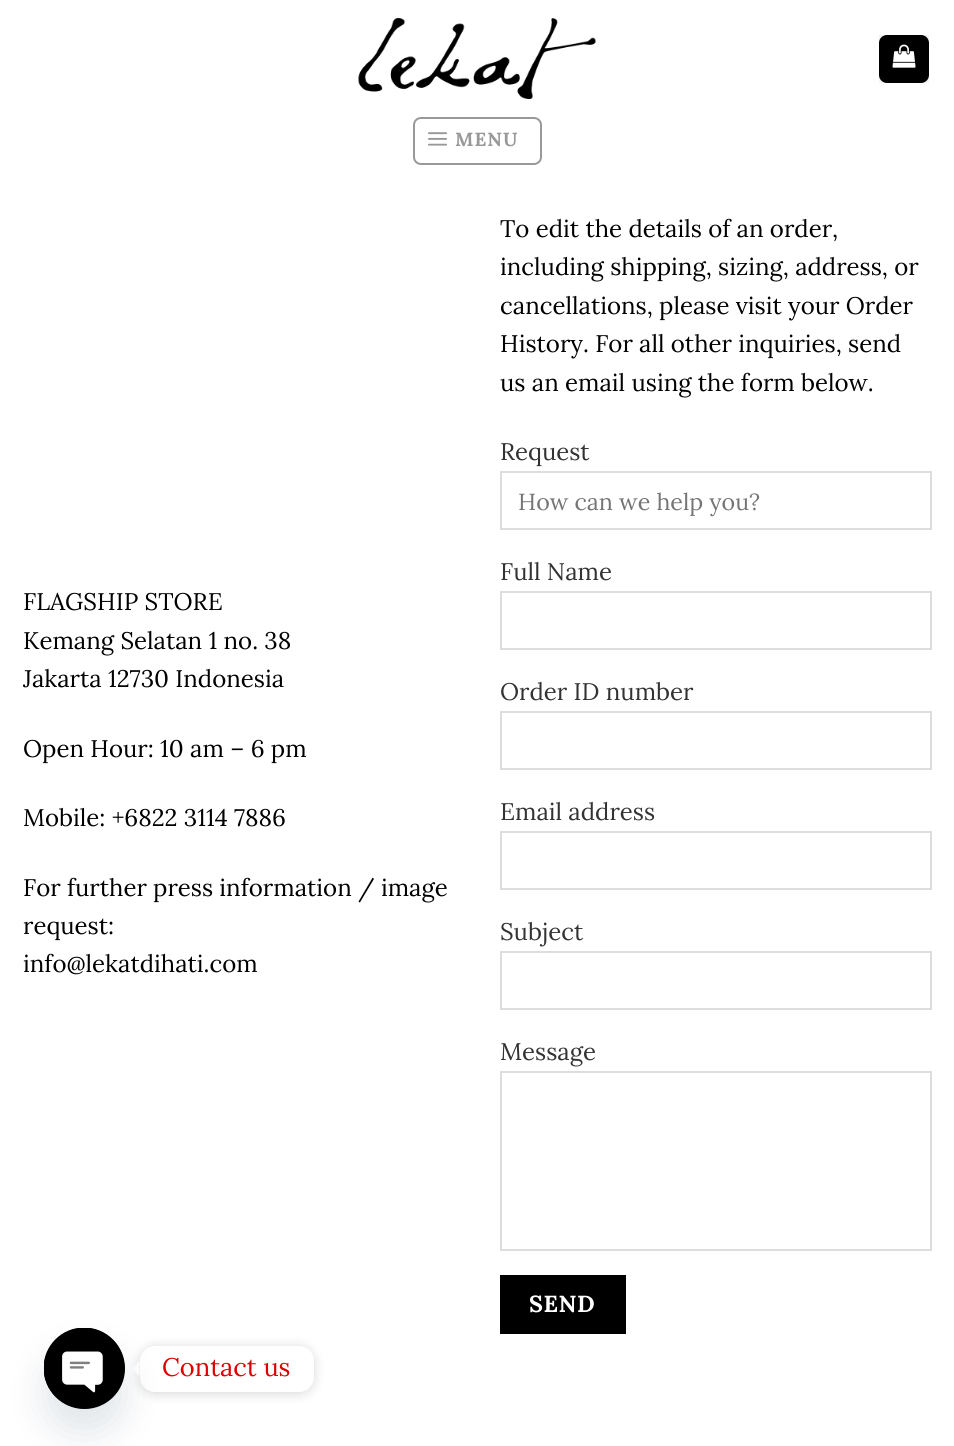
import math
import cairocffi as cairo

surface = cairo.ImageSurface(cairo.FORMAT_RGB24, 954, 1446)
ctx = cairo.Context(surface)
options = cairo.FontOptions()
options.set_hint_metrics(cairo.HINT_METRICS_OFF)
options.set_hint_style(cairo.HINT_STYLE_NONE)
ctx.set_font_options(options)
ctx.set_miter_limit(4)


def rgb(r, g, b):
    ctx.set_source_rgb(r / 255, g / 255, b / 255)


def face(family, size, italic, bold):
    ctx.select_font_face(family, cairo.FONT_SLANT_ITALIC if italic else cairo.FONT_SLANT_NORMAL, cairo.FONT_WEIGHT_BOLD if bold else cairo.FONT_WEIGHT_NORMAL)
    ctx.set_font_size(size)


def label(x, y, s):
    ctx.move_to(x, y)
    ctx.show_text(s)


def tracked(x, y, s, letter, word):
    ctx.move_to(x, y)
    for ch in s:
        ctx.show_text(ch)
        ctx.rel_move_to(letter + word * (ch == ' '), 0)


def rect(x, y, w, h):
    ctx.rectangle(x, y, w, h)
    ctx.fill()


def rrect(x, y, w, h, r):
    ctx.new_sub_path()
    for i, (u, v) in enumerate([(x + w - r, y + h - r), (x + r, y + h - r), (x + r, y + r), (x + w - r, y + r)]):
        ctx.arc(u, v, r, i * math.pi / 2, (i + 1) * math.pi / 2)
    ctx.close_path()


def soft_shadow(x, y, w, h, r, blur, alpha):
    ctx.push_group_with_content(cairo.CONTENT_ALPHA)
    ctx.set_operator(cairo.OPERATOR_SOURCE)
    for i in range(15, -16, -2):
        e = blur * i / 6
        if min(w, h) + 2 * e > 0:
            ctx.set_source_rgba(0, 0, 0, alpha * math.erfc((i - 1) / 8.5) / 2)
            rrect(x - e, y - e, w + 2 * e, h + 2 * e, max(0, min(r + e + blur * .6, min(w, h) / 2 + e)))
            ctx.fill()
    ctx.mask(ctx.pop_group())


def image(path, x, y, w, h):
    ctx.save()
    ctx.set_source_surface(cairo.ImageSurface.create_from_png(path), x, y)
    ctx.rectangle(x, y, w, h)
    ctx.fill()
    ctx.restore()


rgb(255, 255, 255)
ctx.paint()
image('image0.png', 358, 18, 238, 81)
rgb(0, 0, 0)
rrect(879, 35, 50, 48, 8)
ctx.fill()
ctx.rectangle(880, 36, 48, 46)
ctx.set_source_rgba(0, 0, 0, 0.05)
ctx.stroke()
image('image1.png', 892, 44, 24, 24)
rrect(414, 118, 127, 46, 7)
rgb(153, 153, 153)
ctx.stroke()
image('image2.png', 428, 132, 20, 14)
face('Lora', 19, 0, 1)
tracked(455, 146, 'MENU', 1, 0)
face('Lora', 24, 0, 0)
rgb(0, 0, 0)
label(23, 610, 'FLAGSHIP STORE')
label(23, 649, 'Kemang Selatan 1 no. 38')
label(23, 687, 'Jakarta 12730 Indonesia')
label(23, 757, 'Open Hour: 10 am – 6 pm')
label(23, 826, 'Mobile: +6822 3114 7886')
label(23, 896, 'For further press information / image')
label(23, 934, 'request:')
label(23, 972, 'info@lekatdihati.com')
label(500, 237, 'To edit the details of an order,')
label(500, 275, 'including shipping, sizing, address, or')
label(500, 314, 'cancellations, please visit your Order')
label(500, 352, 'History. For all other inquiries, send')
label(500, 391, 'us an email using the form below.')
rgb(51, 51, 51)
label(500, 460, 'Request')
ctx.rectangle(501, 472, 430, 57)
rgb(221, 221, 221)
ctx.stroke()
face('Lora', 23.25, 0, 0)
rgb(117, 117, 117)
label(518, 510, 'How can we help you?')
face('Lora', 24, 0, 0)
rgb(51, 51, 51)
label(500, 580, 'Full Name')
ctx.rectangle(501, 592, 430, 57)
rgb(221, 221, 221)
ctx.stroke()
rgb(51, 51, 51)
label(500, 700, 'Order ID number')
ctx.rectangle(501, 712, 430, 57)
rgb(221, 221, 221)
ctx.stroke()
rgb(51, 51, 51)
label(500, 820, 'Email address')
ctx.rectangle(501, 832, 430, 57)
rgb(221, 221, 221)
ctx.stroke()
rgb(51, 51, 51)
label(500, 940, 'Subject')
ctx.rectangle(501, 952, 430, 57)
rgb(221, 221, 221)
ctx.stroke()
rgb(51, 51, 51)
label(500, 1060, 'Message')
ctx.rectangle(501, 1072, 430, 178)
rgb(221, 221, 221)
ctx.stroke()
rgb(0, 0, 0)
rect(500, 1275, 126, 59)
face('Lora', 23.25, 0, 1)
rgb(255, 255, 255)
tracked(529, 1312, 'SEND', 0.5, 0)
rgb(0, 0, 0)
soft_shadow(140, 1347, 174, 47, 15, 6, 0.15)
rgb(255, 255, 255)
rrect(140, 1346, 174, 46, 15)
ctx.fill()
ctx.new_path()
ctx.move_to(139.5, 1361)
ctx.line_to(139.5, 1376)
ctx.line_to(132, 1369)
ctx.close_path()
ctx.fill()
rgb(73, 104, 126)
soft_shadow(44, 1352, 81, 81, 40.5, 18, 0.16)
rgb(0, 0, 0)
ctx.arc(84.5, 1368.5, 40.5, 0, 2 * math.pi)
ctx.fill()
image('image3.png', 44, 1328, 81, 81)
face('Lora', 25.5, 0, 0)
rgb(221, 0, 0)
label(162, 1376, 'Contact us')
surface.write_to_png('render.png')
